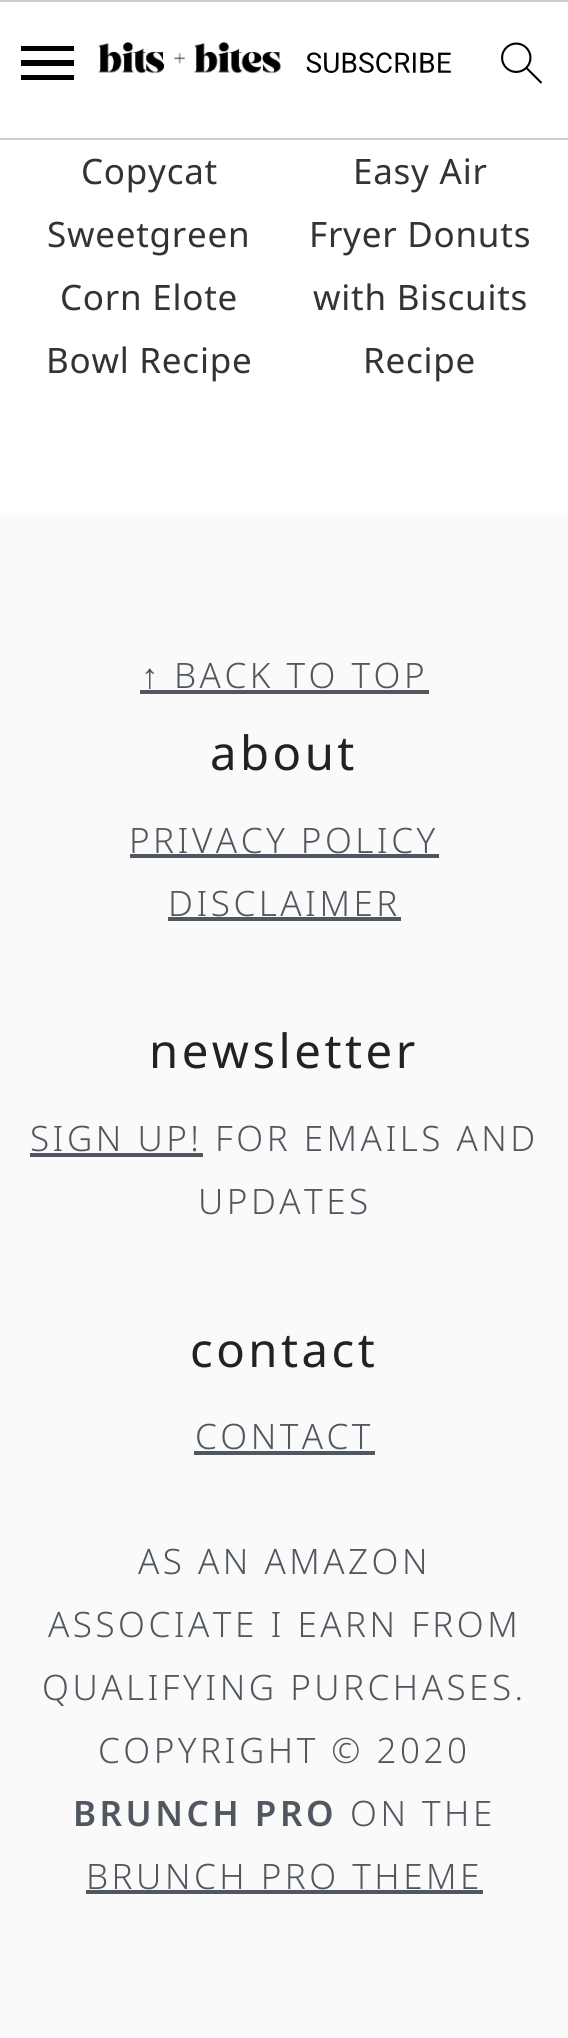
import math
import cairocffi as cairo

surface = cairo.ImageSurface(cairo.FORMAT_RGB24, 568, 2038)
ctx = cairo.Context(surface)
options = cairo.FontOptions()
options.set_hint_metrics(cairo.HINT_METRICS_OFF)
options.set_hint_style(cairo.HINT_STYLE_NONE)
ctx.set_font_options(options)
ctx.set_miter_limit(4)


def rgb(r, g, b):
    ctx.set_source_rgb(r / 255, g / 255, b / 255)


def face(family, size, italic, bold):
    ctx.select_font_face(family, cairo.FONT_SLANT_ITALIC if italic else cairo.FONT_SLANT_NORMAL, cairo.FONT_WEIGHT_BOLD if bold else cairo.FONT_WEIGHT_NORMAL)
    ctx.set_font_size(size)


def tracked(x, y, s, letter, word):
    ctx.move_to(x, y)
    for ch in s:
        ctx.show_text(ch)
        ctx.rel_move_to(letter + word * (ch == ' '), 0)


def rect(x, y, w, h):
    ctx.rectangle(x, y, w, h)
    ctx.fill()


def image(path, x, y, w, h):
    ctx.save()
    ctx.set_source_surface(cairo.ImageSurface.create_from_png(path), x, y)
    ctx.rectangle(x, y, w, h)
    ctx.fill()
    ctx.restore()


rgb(255, 255, 255)
ctx.paint()
rgb(204, 204, 204)
rect(0, 0, 568, 2)
rect(0, 138, 568, 2)
rgb(0, 0, 0)
ctx.new_path()
ctx.move_to(21, 80)
ctx.line_to(74, 80)
ctx.line_to(74, 75)
ctx.line_to(21, 75)
ctx.close_path()
ctx.move_to(21, 66)
ctx.line_to(74, 66)
ctx.line_to(74, 60)
ctx.line_to(21, 60)
ctx.close_path()
ctx.move_to(21, 46)
ctx.line_to(21, 51)
ctx.line_to(74, 51)
ctx.line_to(74, 46)
ctx.close_path()
ctx.fill()
image('image0.png', 98, 41, 183, 33)
image('image1.png', 306, 52, 145, 21)
image('image2.png', 501, 42, 41, 42)
face('Noto Sans', 35, 0, 0)
rgb(51, 51, 51)
tracked(81, 184, 'Copycat', 0.75, 0)
tracked(47, 247, 'Sweetgreen', 0.75, 0)
tracked(60, 310, 'Corn Elote', 0.75, 0)
tracked(46, 373, 'Bowl Recipe', 0.75, 0)
tracked(353, 184, 'Easy Air', 0.75, 0)
tracked(309, 247, 'Fryer Donuts', 0.75, 0)
tracked(313, 310, 'with Biscuits', 0.75, 0)
tracked(363, 373, 'Recipe', 0.75, 0)
rgb(250, 250, 250)
rect(0, 513, 568, 1525)
face('Liberation Sans', 35, 0, 0)
rgb(80, 87, 95)
tracked(141, 688, '↑', 3.5, 0)
rect(140, 690, 289, 4)
face('Noto Sans Light', 35, 0, 0)
tracked(174, 688, 'BACK TO TOP', 3.5, 0)
face('Noto Sans', 47.25, 0, 0)
rgb(34, 34, 34)
tracked(210, 770, 'about', 3.5, 0)
face('Noto Sans Light', 35, 0, 0)
rgb(80, 87, 95)
tracked(129, 853, 'PRIVACY POLICY', 3.5, 0)
rect(130, 854, 309, 4)
tracked(168, 916, 'DISCLAIMER', 3.5, 0)
rect(168, 917, 233, 4)
face('Noto Sans', 47.25, 0, 0)
rgb(34, 34, 34)
tracked(149, 1068, 'newsletter', 3.5, 0)
face('Noto Sans Light', 35, 0, 0)
rgb(80, 87, 95)
tracked(30, 1151, 'SIGN UP! FOR EMAILS AND', 3.5, 0)
rect(30, 1153, 173, 4)
tracked(198, 1214, 'UPDATES', 3.5, 0)
face('Noto Sans', 47.25, 0, 0)
rgb(34, 34, 34)
tracked(190, 1367, 'contact', 3.5, 0)
face('Noto Sans Light', 35, 0, 0)
rgb(80, 87, 95)
tracked(195, 1449, 'CONTACT', 3.5, 0)
rect(194, 1451, 181, 4)
tracked(138, 1574, 'AS AN AMAZON', 3.5, 0)
tracked(48, 1637, 'ASSOCIATE I EARN FROM', 3.5, 0)
tracked(42, 1700, 'QUALIFYING PURCHASES.', 3.5, 0)
tracked(98, 1763, 'COPYRIGHT © 2020', 3.5, 0)
face('Noto Sans SemiBold', 35, 0, 0)
tracked(73, 1826, 'BRUNCH PRO', 3.5, 0)
face('Noto Sans Light', 35, 0, 0)
tracked(350, 1826, 'ON THE', 3.5, 0)
tracked(86, 1889, 'BRUNCH PRO THEME', 3.5, 0)
rect(86, 1890, 397, 4)
surface.write_to_png('render.png')
